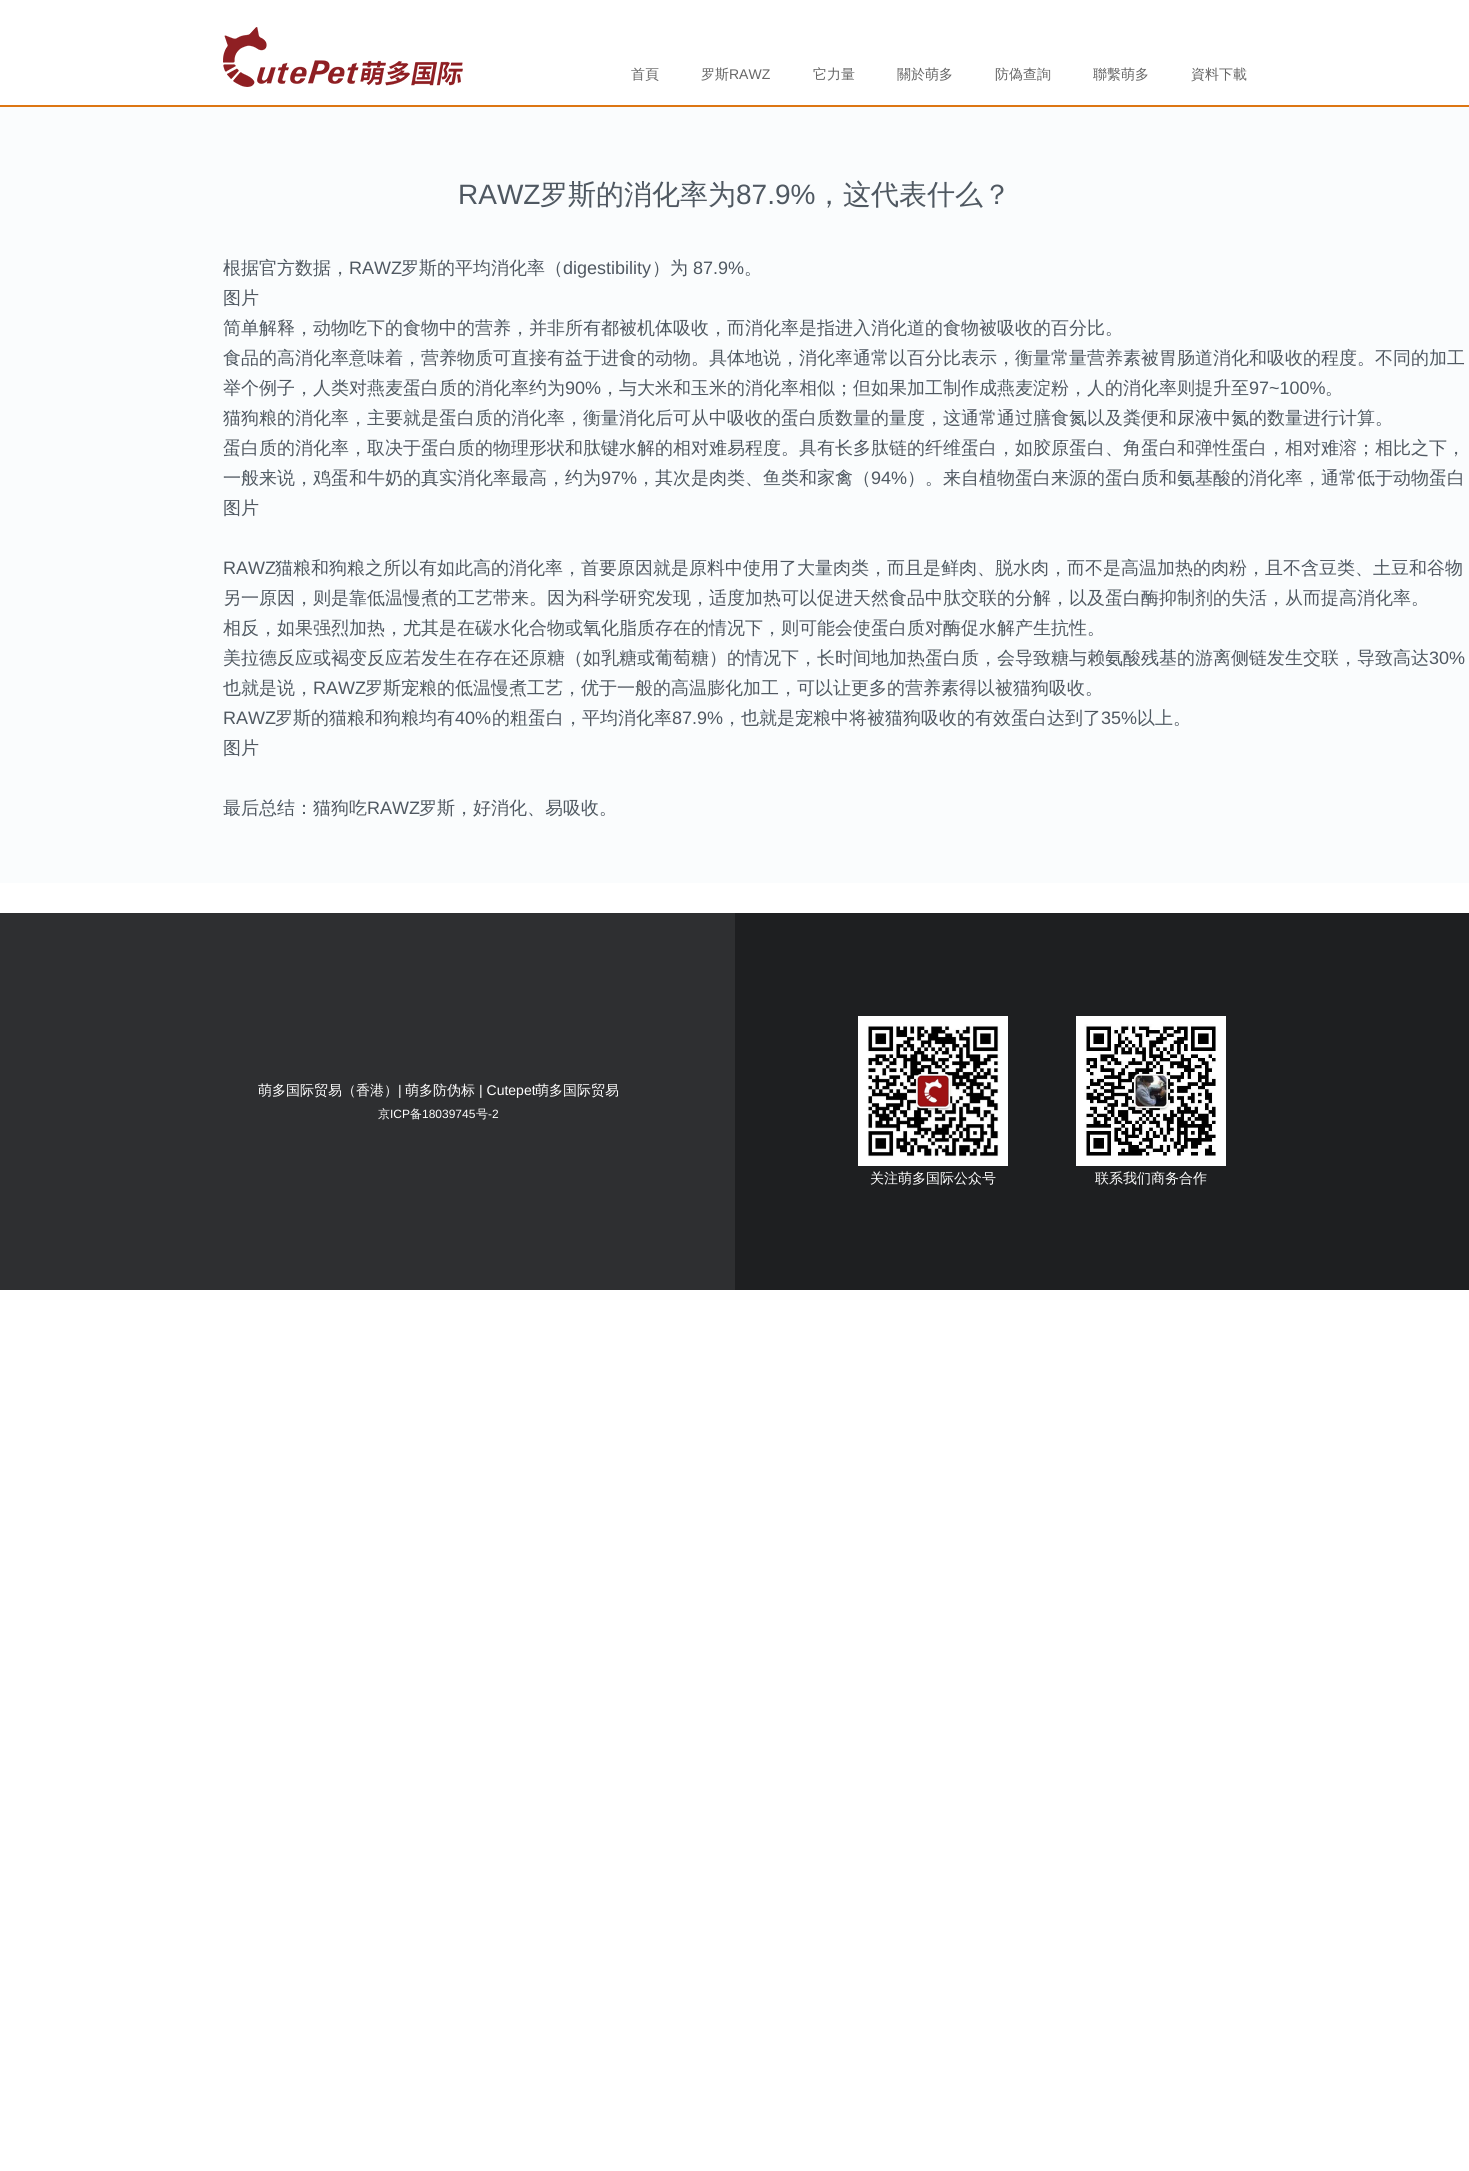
import math
import cairocffi as cairo

surface = cairo.ImageSurface(cairo.FORMAT_RGB24, 1469, 2171)
ctx = cairo.Context(surface)
options = cairo.FontOptions()
options.set_hint_metrics(cairo.HINT_METRICS_OFF)
options.set_hint_style(cairo.HINT_STYLE_NONE)
ctx.set_font_options(options)
ctx.set_miter_limit(4)


def rgb(r, g, b):
    ctx.set_source_rgb(r / 255, g / 255, b / 255)


def face(family, size, italic, bold):
    ctx.select_font_face(family, cairo.FONT_SLANT_ITALIC if italic else cairo.FONT_SLANT_NORMAL, cairo.FONT_WEIGHT_BOLD if bold else cairo.FONT_WEIGHT_NORMAL)
    ctx.set_font_size(size)


def label(x, y, s):
    ctx.move_to(x, y)
    ctx.show_text(s)


def rect(x, y, w, h):
    ctx.rectangle(x, y, w, h)
    ctx.fill()


def image(path, x, y, w, h):
    ctx.save()
    ctx.set_source_surface(cairo.ImageSurface.create_from_png(path), x, y)
    ctx.rectangle(x, y, w, h)
    ctx.fill()
    ctx.restore()


rgb(255, 255, 255)
ctx.paint()
rgb(221, 118, 19)
rect(0, 105, 1469, 2)
image('image0.png', 223, 27, 240, 60)
face('WenQuanYi Zen Hei Medium', 14, 0, 0)
rgb(102, 102, 102)
label(631, 79, '首頁')
label(701, 79, '罗斯')
face('Liberation Sans', 14, 0, 0)
label(729, 79, 'RAWZ')
face('WenQuanYi Zen Hei Medium', 14, 0, 0)
label(813, 79, '它力量')
label(897, 79, '關於萌多')
label(995, 79, '防偽查詢')
label(1093, 79, '聯繫萌多')
label(1191, 79, '資料下載')
rgb(250, 252, 253)
rect(0, 107, 1469, 776)
face('Liberation Sans', 28, 0, 0)
rgb(79, 88, 97)
label(458, 204, 'RAWZ')
face('WenQuanYi Zen Hei Medium', 28, 0, 0)
label(540, 204, '罗斯的消化率为')
face('Liberation Sans', 28, 0, 0)
label(736, 204, '87.9%')
face('WenQuanYi Zen Hei Medium', 28, 0, 0)
label(815, 204, '，这代表什么？')
face('WenQuanYi Zen Hei Medium', 18, 0, 0)
label(223, 274, '根据官方数据，')
face('Liberation Sans', 18, 0, 0)
label(349, 274, 'RAWZ')
face('WenQuanYi Zen Hei Medium', 18, 0, 0)
label(401, 274, '罗斯的平均消化率（')
face('Liberation Sans', 18, 0, 0)
label(563, 274, 'digestibility')
face('WenQuanYi Zen Hei Medium', 18, 0, 0)
label(652, 274, '）为')
face('Liberation Sans', 18, 0, 0)
label(693, 274, '87.9%')
face('WenQuanYi Zen Hei Medium', 18, 0, 0)
label(744, 274, '。')
label(223, 304, '图片')
label(223, 334, '简单解释，动物吃下的食物中的营养，并非所有都被机体吸收，而消化率是指进入消化道的食物被吸收的百分比。')
label(223, 364, '食品的高消化率意味着，营养物质可直接有益于进食的动物。具体地说，消化率通常以百分比表示，衡量常量营养素被胃肠道消化和吸收的程度。不同的加工')
label(223, 394, '举个例子，人类对燕麦蛋白质的消化率约为')
face('Liberation Sans', 18, 0, 0)
label(565, 394, '90%')
face('WenQuanYi Zen Hei Medium', 18, 0, 0)
label(601, 394, '，与大米和玉米的消化率相似；但如果加工制作成燕麦淀粉，人的消化率则提升至')
face('Liberation Sans', 18, 0, 0)
label(1249, 394, '97~100%')
face('WenQuanYi Zen Hei Medium', 18, 0, 0)
label(1325, 394, '。')
label(223, 424, '猫狗粮的消化率，主要就是蛋白质的消化率，衡量消化后可从中吸收的蛋白质数量的量度，这通常通过膳食氮以及粪便和尿液中氮的数量进行计算。')
label(223, 454, '蛋白质的消化率，取决于蛋白质的物理形状和肽键水解的相对难易程度。具有长多肽链的纤维蛋白，如胶原蛋白、角蛋白和弹性蛋白，相对难溶；相比之下，')
label(223, 484, '一般来说，鸡蛋和牛奶的真实消化率最高，约为')
face('Liberation Sans', 18, 0, 0)
label(601, 484, '97%')
face('WenQuanYi Zen Hei Medium', 18, 0, 0)
label(637, 484, '，其次是肉类、鱼类和家禽（')
face('Liberation Sans', 18, 0, 0)
label(871, 484, '94%')
face('WenQuanYi Zen Hei Medium', 18, 0, 0)
label(907, 484, '）。来自植物蛋白来源的蛋白质和氨基酸的消化率，通常低于动物蛋白')
label(223, 514, '图片')
face('Liberation Sans', 18, 0, 0)
label(223, 574, 'RAWZ')
face('WenQuanYi Zen Hei Medium', 18, 0, 0)
label(275, 574, '猫粮和狗粮之所以有如此高的消化率，首要原因就是原料中使用了大量肉类，而且是鲜肉、脱水肉，而不是高温加热的肉粉，且不含豆类、土豆和谷物')
label(223, 604, '另一原因，则是靠低温慢煮的工艺带来。因为科学研究发现，适度加热可以促进天然食品中肽交联的分解，以及蛋白酶抑制剂的失活，从而提高消化率。')
label(223, 634, '相反，如果强烈加热，尤其是在碳水化合物或氧化脂质存在的情况下，则可能会使蛋白质对酶促水解产生抗性。')
label(223, 664, '美拉德反应或褐变反应若发生在存在还原糖（如乳糖或葡萄糖）的情况下，长时间地加热蛋白质，会导致糖与赖氨酸残基的游离侧链发生交联，导致高达')
face('Liberation Sans', 18, 0, 0)
label(1429, 664, '30%')
face('WenQuanYi Zen Hei Medium', 18, 0, 0)
label(223, 694, '也就是说，')
face('Liberation Sans', 18, 0, 0)
label(313, 694, 'RAWZ')
face('WenQuanYi Zen Hei Medium', 18, 0, 0)
label(365, 694, '罗斯宠粮的低温慢煮工艺，优于一般的高温膨化加工，可以让更多的营养素得以被猫狗吸收。')
face('Liberation Sans', 18, 0, 0)
label(223, 724, 'RAWZ')
face('WenQuanYi Zen Hei Medium', 18, 0, 0)
label(275, 724, '罗斯的猫粮和狗粮均有')
face('Liberation Sans', 18, 0, 0)
label(455, 724, '40%')
face('WenQuanYi Zen Hei Medium', 18, 0, 0)
label(492, 724, '的粗蛋白，平均消化率')
face('Liberation Sans', 18, 0, 0)
label(672, 724, '87.9%')
face('WenQuanYi Zen Hei Medium', 18, 0, 0)
label(723, 724, '，也就是宠粮中将被猫狗吸收的有效蛋白达到了')
face('Liberation Sans', 18, 0, 0)
label(1101, 724, '35%')
face('WenQuanYi Zen Hei Medium', 18, 0, 0)
label(1137, 724, '以上。')
label(223, 754, '图片')
label(223, 814, '最后总结：猫狗吃')
face('Liberation Sans', 18, 0, 0)
label(367, 814, 'RAWZ')
face('WenQuanYi Zen Hei Medium', 18, 0, 0)
label(419, 814, '罗斯，好消化、易吸收。')
rgb(46, 47, 49)
rect(0, 913, 735, 377)
face('WenQuanYi Zen Hei Medium', 14, 0, 0)
rgb(255, 255, 255)
label(258, 1095, '萌多国际贸易（香港）')
face('Liberation Sans', 14, 0, 0)
label(398, 1095, '|')
face('WenQuanYi Zen Hei Medium', 14, 0, 0)
label(405, 1095, '萌多防伪标')
face('Liberation Sans', 14, 0, 0)
label(479, 1095, '| Cutepet')
face('WenQuanYi Zen Hei Medium', 14, 0, 0)
label(535, 1095, '萌多国际贸易')
face('WenQuanYi Zen Hei Medium', 12, 0, 0)
label(378, 1118, '京')
face('Liberation Sans', 12, 0, 0)
label(390, 1118, 'ICP')
face('WenQuanYi Zen Hei Medium', 12, 0, 0)
label(410, 1118, '备')
face('Liberation Sans', 12, 0, 0)
label(422, 1118, '18039745')
face('WenQuanYi Zen Hei Medium', 12, 0, 0)
label(476, 1118, '号')
face('Liberation Sans', 12, 0, 0)
label(488, 1118, '-2')
rgb(30, 31, 33)
rect(735, 913, 734, 377)
image('image1.png', 858, 1016, 150, 150)
face('WenQuanYi Zen Hei Medium', 14, 0, 0)
rgb(255, 255, 255)
label(870, 1183, '关注萌多国际公众号')
image('image2.png', 1076, 1016, 150, 150)
label(1095, 1183, '联系我们商务合作')
surface.write_to_png('render.png')
